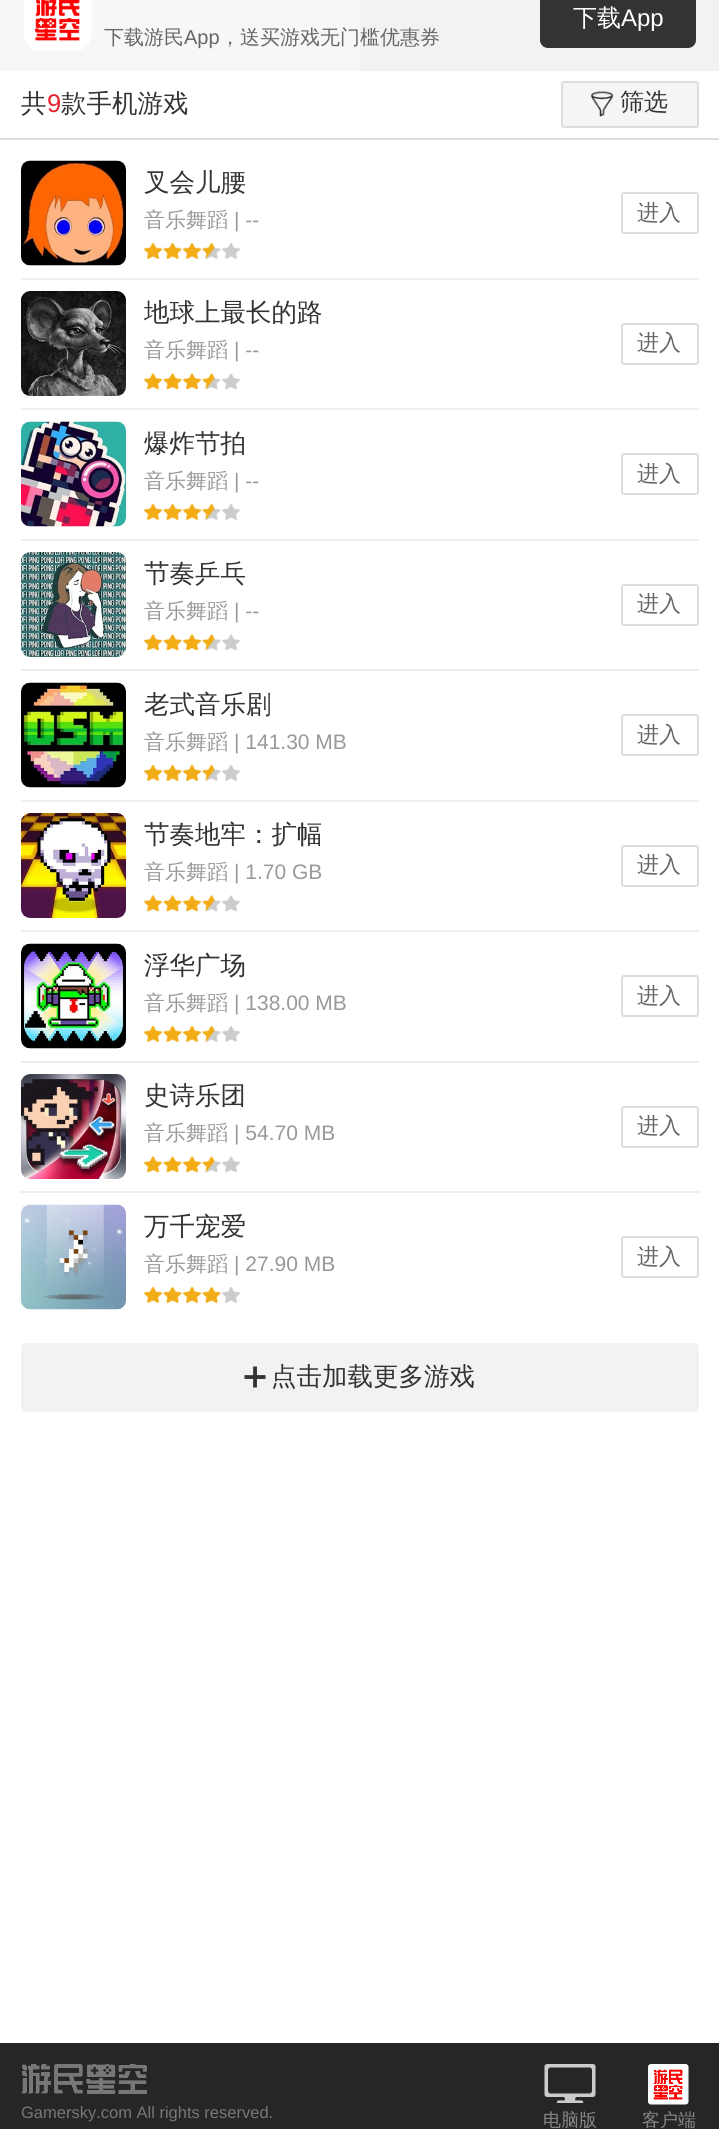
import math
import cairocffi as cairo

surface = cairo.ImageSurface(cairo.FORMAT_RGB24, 719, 2129)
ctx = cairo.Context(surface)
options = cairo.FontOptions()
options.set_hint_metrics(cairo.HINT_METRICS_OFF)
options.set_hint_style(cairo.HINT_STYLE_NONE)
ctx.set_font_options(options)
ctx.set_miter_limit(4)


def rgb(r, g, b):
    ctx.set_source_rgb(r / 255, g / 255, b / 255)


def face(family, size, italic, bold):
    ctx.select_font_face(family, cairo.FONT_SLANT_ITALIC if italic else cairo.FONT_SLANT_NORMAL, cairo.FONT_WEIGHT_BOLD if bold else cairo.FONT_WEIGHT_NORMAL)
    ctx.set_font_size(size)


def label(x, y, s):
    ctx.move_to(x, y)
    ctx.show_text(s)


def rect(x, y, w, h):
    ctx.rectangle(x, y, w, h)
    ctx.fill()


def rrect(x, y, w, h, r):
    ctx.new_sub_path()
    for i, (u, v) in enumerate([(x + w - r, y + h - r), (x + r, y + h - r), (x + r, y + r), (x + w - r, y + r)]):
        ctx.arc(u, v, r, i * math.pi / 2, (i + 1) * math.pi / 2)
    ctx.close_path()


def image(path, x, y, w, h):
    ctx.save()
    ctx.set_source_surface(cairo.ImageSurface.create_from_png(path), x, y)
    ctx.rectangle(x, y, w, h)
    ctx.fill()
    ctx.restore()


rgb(242, 242, 243)
ctx.paint()
rgb(247, 247, 247)
rect(0, 0, 360, 71)
image('image0.png', 24, 0, 68, 51)
rgb(51, 51, 51)
rrect(540, -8, 156, 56, 8)
ctx.fill()
face('WenQuanYi Zen Hei Medium', 24, 0, 0)
rgb(255, 255, 255)
label(573, 26, '下载')
face('Liberation Sans', 24, 0, 0)
label(621, 26, 'App')
face('WenQuanYi Zen Hei Medium', 20, 0, 0)
rgb(102, 102, 102)
label(104, 44, '下载游民')
face('Liberation Sans', 20, 0, 0)
label(184, 44, 'App')
face('WenQuanYi Zen Hei Medium', 20, 0, 0)
label(220, 44, '，送买游戏无门槛优惠券')
rgb(255, 255, 255)
rect(0, 71, 719, 1972)
rgb(221, 221, 221)
rect(0, 138, 719, 2)
face('WenQuanYi Zen Hei Medium', 25.5, 0, 0)
rgb(51, 51, 51)
label(21, 112, '共')
face('Liberation Sans', 25.5, 0, 0)
rgb(231, 34, 42)
label(47, 112, '9')
face('WenQuanYi Zen Hei Medium', 25.5, 0, 0)
rgb(51, 51, 51)
label(61, 112, '款手机游戏')
rgb(245, 245, 245)
rrect(562, 82, 136, 45, 2)
ctx.fill_preserve()
rgb(221, 221, 221)
ctx.stroke()
image('image1.png', 591, 91, 23, 26)
face('WenQuanYi Zen Hei Medium', 24, 0, 0)
rgb(51, 51, 51)
label(620, 110, '筛选')
image('image2.png', 21, 160, 105, 106)
face('WenQuanYi Zen Hei Medium', 25.5, 0, 0)
label(144, 191, '叉会儿腰')
face('WenQuanYi Zen Hei Medium', 21, 0, 0)
rgb(153, 153, 153)
label(144, 227, '音乐舞蹈')
face('Liberation Sans', 21, 0, 0)
label(234, 227, '| --')
image('image3.png', 144, 243, 96, 16)
rrect(622, 193, 76, 40, 2)
rgb(221, 221, 221)
ctx.stroke()
face('WenQuanYi Zen Hei Medium', 22, 0, 0)
rgb(102, 102, 102)
label(637, 220, '进入')
rgb(238, 238, 238)
rect(21, 278, 678, 2)
image('image4.png', 21, 291, 105, 105)
face('WenQuanYi Zen Hei Medium', 25.5, 0, 0)
rgb(51, 51, 51)
label(144, 321, '地球上最长的路')
face('WenQuanYi Zen Hei Medium', 21, 0, 0)
rgb(153, 153, 153)
label(144, 357, '音乐舞蹈')
face('Liberation Sans', 21, 0, 0)
label(234, 357, '| --')
image('image5.png', 144, 373, 96, 17)
rrect(622, 324, 76, 40, 2)
rgb(221, 221, 221)
ctx.stroke()
face('WenQuanYi Zen Hei Medium', 22, 0, 0)
rgb(102, 102, 102)
label(637, 350, '进入')
rgb(238, 238, 238)
rect(21, 408, 678, 2)
image('image6.png', 21, 421, 105, 106)
face('WenQuanYi Zen Hei Medium', 25.5, 0, 0)
rgb(51, 51, 51)
label(144, 452, '爆炸节拍')
face('WenQuanYi Zen Hei Medium', 21, 0, 0)
rgb(153, 153, 153)
label(144, 488, '音乐舞蹈')
face('Liberation Sans', 21, 0, 0)
label(234, 488, '| --')
image('image3.png', 144, 504, 96, 16)
rrect(622, 454, 76, 40, 2)
rgb(221, 221, 221)
ctx.stroke()
face('WenQuanYi Zen Hei Medium', 22, 0, 0)
rgb(102, 102, 102)
label(637, 481, '进入')
rgb(238, 238, 238)
rect(21, 539, 678, 2)
image('image7.png', 21, 552, 105, 105)
face('WenQuanYi Zen Hei Medium', 25.5, 0, 0)
rgb(51, 51, 51)
label(144, 582, '节奏乒乓')
face('WenQuanYi Zen Hei Medium', 21, 0, 0)
rgb(153, 153, 153)
label(144, 618, '音乐舞蹈')
face('Liberation Sans', 21, 0, 0)
label(234, 618, '| --')
image('image5.png', 144, 634, 96, 17)
rrect(622, 585, 76, 40, 2)
rgb(221, 221, 221)
ctx.stroke()
face('WenQuanYi Zen Hei Medium', 22, 0, 0)
rgb(102, 102, 102)
label(637, 611, '进入')
rgb(238, 238, 238)
rect(21, 669, 678, 2)
image('image8.png', 21, 682, 105, 106)
face('WenQuanYi Zen Hei Medium', 25.5, 0, 0)
rgb(51, 51, 51)
label(144, 713, '老式音乐剧')
face('WenQuanYi Zen Hei Medium', 21, 0, 0)
rgb(153, 153, 153)
label(144, 749, '音乐舞蹈')
face('Liberation Sans', 21, 0, 0)
label(234, 749, '| 141.30 MB')
image('image3.png', 144, 765, 96, 16)
rrect(622, 715, 76, 40, 2)
rgb(221, 221, 221)
ctx.stroke()
face('WenQuanYi Zen Hei Medium', 22, 0, 0)
rgb(102, 102, 102)
label(637, 742, '进入')
rgb(238, 238, 238)
rect(21, 800, 678, 2)
image('image9.png', 21, 813, 105, 105)
face('WenQuanYi Zen Hei Medium', 25.5, 0, 0)
rgb(51, 51, 51)
label(144, 843, '节奏地牢：扩幅')
face('WenQuanYi Zen Hei Medium', 21, 0, 0)
rgb(153, 153, 153)
label(144, 879, '音乐舞蹈')
face('Liberation Sans', 21, 0, 0)
label(234, 879, '| 1.70 GB')
image('image5.png', 144, 895, 96, 17)
rrect(622, 846, 76, 40, 2)
rgb(221, 221, 221)
ctx.stroke()
face('WenQuanYi Zen Hei Medium', 22, 0, 0)
rgb(102, 102, 102)
label(637, 872, '进入')
rgb(238, 238, 238)
rect(21, 930, 678, 2)
image('image10.png', 21, 943, 105, 106)
face('WenQuanYi Zen Hei Medium', 25.5, 0, 0)
rgb(51, 51, 51)
label(144, 974, '浮华广场')
face('WenQuanYi Zen Hei Medium', 21, 0, 0)
rgb(153, 153, 153)
label(144, 1010, '音乐舞蹈')
face('Liberation Sans', 21, 0, 0)
label(234, 1010, '| 138.00 MB')
image('image3.png', 144, 1026, 96, 16)
rrect(622, 976, 76, 40, 2)
rgb(221, 221, 221)
ctx.stroke()
face('WenQuanYi Zen Hei Medium', 22, 0, 0)
rgb(102, 102, 102)
label(637, 1003, '进入')
rgb(238, 238, 238)
rect(21, 1061, 678, 2)
image('image11.png', 21, 1074, 105, 105)
face('WenQuanYi Zen Hei Medium', 25.5, 0, 0)
rgb(51, 51, 51)
label(144, 1104, '史诗乐团')
face('WenQuanYi Zen Hei Medium', 21, 0, 0)
rgb(153, 153, 153)
label(144, 1140, '音乐舞蹈')
face('Liberation Sans', 21, 0, 0)
label(234, 1140, '| 54.70 MB')
image('image5.png', 144, 1156, 96, 17)
rrect(622, 1107, 76, 40, 2)
rgb(221, 221, 221)
ctx.stroke()
face('WenQuanYi Zen Hei Medium', 22, 0, 0)
rgb(102, 102, 102)
label(637, 1133, '进入')
rgb(238, 238, 238)
rect(21, 1191, 678, 2)
image('image12.png', 21, 1204, 105, 106)
face('WenQuanYi Zen Hei Medium', 25.5, 0, 0)
rgb(51, 51, 51)
label(144, 1235, '万千宠爱')
face('WenQuanYi Zen Hei Medium', 21, 0, 0)
rgb(153, 153, 153)
label(144, 1271, '音乐舞蹈')
face('Liberation Sans', 21, 0, 0)
label(234, 1271, '| 27.90 MB')
image('image13.png', 144, 1287, 96, 16)
rrect(622, 1237, 76, 40, 2)
rgb(221, 221, 221)
ctx.stroke()
face('WenQuanYi Zen Hei Medium', 22, 0, 0)
rgb(102, 102, 102)
label(637, 1264, '进入')
rgb(242, 242, 243)
rrect(21, 1343, 678, 69, 5)
ctx.fill()
image('image14.png', 244, 1366, 22, 22)
face('WenQuanYi Zen Hei Medium', 25.5, 0, 0)
rgb(51, 51, 51)
label(271, 1385, '点击加载更多游戏')
rgb(38, 38, 38)
rect(0, 2043, 719, 86)
image('image15.png', 21, 2064, 126, 30)
face('Liberation Sans', 16.5, 0, 0)
rgb(119, 119, 119)
label(21, 2118, 'Gamersky.com All rights reserved.')
image('image16.png', 544, 2064, 52, 39)
face('WenQuanYi Zen Hei Medium', 18, 0, 0)
rgb(136, 136, 136)
label(543, 2126, '电脑版')
image('image17.png', 648, 2064, 41, 41)
label(642, 2126, '客户端')
surface.write_to_png('render.png')
